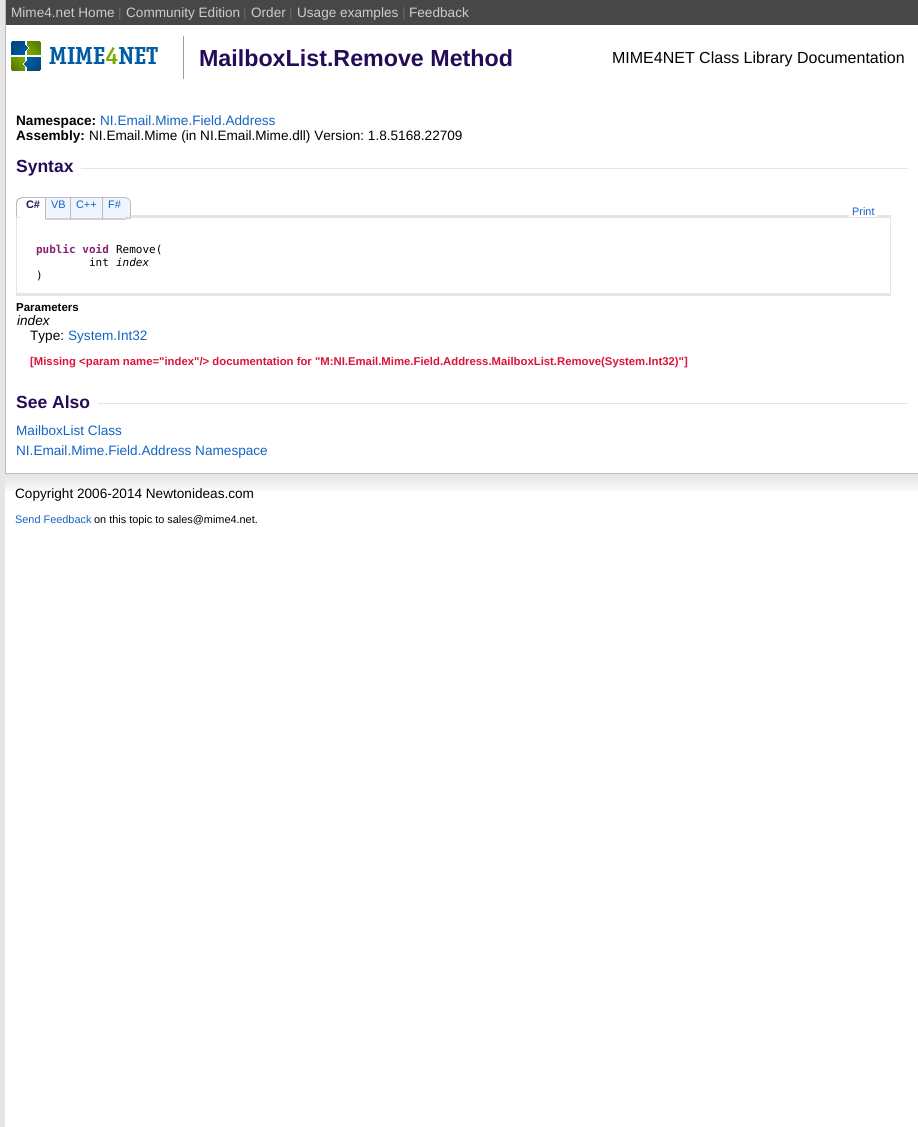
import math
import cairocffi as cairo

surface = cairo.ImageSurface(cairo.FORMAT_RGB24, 918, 1127)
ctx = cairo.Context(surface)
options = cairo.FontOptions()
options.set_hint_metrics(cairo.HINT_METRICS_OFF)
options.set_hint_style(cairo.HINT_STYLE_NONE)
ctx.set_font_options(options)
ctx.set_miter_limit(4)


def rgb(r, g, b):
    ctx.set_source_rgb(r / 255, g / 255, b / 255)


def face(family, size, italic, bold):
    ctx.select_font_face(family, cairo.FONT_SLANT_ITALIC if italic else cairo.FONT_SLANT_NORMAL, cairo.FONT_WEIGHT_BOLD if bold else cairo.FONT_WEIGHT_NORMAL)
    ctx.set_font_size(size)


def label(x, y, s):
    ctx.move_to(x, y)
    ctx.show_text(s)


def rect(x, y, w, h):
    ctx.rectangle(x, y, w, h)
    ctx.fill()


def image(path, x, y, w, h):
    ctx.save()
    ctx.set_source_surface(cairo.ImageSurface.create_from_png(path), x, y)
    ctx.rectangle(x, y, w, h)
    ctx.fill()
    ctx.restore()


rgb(255, 255, 255)
ctx.paint()
rgb(230, 230, 230)
rect(0, 0, 5, 1127)
rgb(187, 187, 187)
rect(5, 0, 1, 473)
rgb(71, 71, 71)
rect(6, 0, 912, 25)
face('Liberation Sans', 13.6, 0, 0)
rgb(204, 204, 204)
label(11, 17, 'Mime4.net Home')
rgb(105, 105, 105)
label(118, 17, '|')
rgb(204, 204, 204)
label(126, 17, 'Community Edition')
rgb(105, 105, 105)
label(243, 17, '|')
rgb(204, 204, 204)
label(251, 17, 'Order')
rgb(105, 105, 105)
label(289, 17, '|')
rgb(204, 204, 204)
label(297, 17, 'Usage examples')
rgb(105, 105, 105)
label(402, 17, '|')
rgb(204, 204, 204)
label(409, 17, 'Feedback')
image('image0.png', 11, 36, 173, 43)
face('Liberation Sans', 23.25, 0, 1)
rgb(37, 12, 88)
label(199, 66, 'MailboxList.Remove Method')
face('Liberation Sans', 16, 0, 0)
rgb(0, 0, 0)
label(612, 63, 'MIME4NET Class Library Documentation')
face('Liberation Sans', 13.6, 0, 1)
label(16, 125, 'Namespace:')
face('Liberation Sans', 13.6, 0, 0)
rgb(19, 100, 196)
label(100, 125, 'NI.Email.Mime.Field.Address')
face('Liberation Sans', 13.6, 0, 1)
rgb(0, 0, 0)
label(16, 140, 'Assembly:')
face('Liberation Sans', 13.6, 0, 0)
label(89, 140, 'NI.Email.Mime (in NI.Email.Mime.dll) Version: 1.8.5168.22709')
face('Liberation Sans', 17.5, 0, 1)
rgb(37, 12, 88)
label(16, 172, 'Syntax')
rgb(229, 229, 229)
rect(81, 168, 827, 1)
rect(17, 215, 873, 3)
rgb(255, 255, 255)
rect(17, 215, 4, 2)
rgb(229, 229, 229)
rect(890, 215, 1, 81)
rect(16, 293, 875, 3)
rect(16, 215, 1, 81)
image('image1.png', 16, 197, 5, 20)
rgb(255, 255, 255)
rect(21, 215, 24, 3)
rgb(187, 187, 187)
rect(21, 197, 105, 1)
face('Liberation Sans', 10.9, 0, 1)
rgb(37, 12, 88)
label(26, 208, 'C#')
rgb(239, 245, 255)
rect(45, 198, 81, 22)
rgb(208, 210, 210)
ctx.new_path()
ctx.move_to(70, 220)
ctx.line_to(45, 220)
ctx.line_to(46, 218)
ctx.line_to(70, 218)
ctx.close_path()
ctx.fill()
rgb(187, 187, 187)
ctx.new_path()
ctx.move_to(45, 220)
ctx.line_to(45, 197)
ctx.line_to(46, 198)
ctx.line_to(46, 218)
ctx.close_path()
ctx.fill()
face('Liberation Sans', 10.9, 0, 0)
rgb(19, 100, 196)
label(51, 208, 'VB')
rgb(208, 210, 210)
ctx.new_path()
ctx.move_to(102, 220)
ctx.line_to(70, 220)
ctx.line_to(71, 218)
ctx.line_to(102, 218)
ctx.close_path()
ctx.fill()
rgb(187, 187, 187)
ctx.new_path()
ctx.move_to(70, 220)
ctx.line_to(70, 197)
ctx.line_to(71, 198)
ctx.line_to(71, 218)
ctx.close_path()
ctx.fill()
rgb(19, 100, 196)
label(76, 208, 'C++')
rgb(208, 210, 210)
ctx.new_path()
ctx.move_to(126, 220)
ctx.line_to(102, 220)
ctx.line_to(103, 218)
ctx.line_to(126, 218)
ctx.close_path()
ctx.fill()
rgb(187, 187, 187)
ctx.new_path()
ctx.move_to(102, 220)
ctx.line_to(102, 197)
ctx.line_to(103, 198)
ctx.line_to(103, 218)
ctx.close_path()
ctx.fill()
rgb(19, 100, 196)
label(108, 208, 'F#')
rgb(239, 245, 255)
rect(126, 197, 4, 22)
image('image2.png', 126, 197, 5, 20)
rgb(208, 210, 210)
rect(126, 217, 5, 2)
rgb(255, 255, 255)
rect(849, 215, 28, 2)
rgb(19, 100, 196)
label(852, 215, 'Print')
face('DejaVu Sans Mono', 11, 0, 1)
rgb(135, 31, 120)
label(36, 253, 'public void')
face('DejaVu Sans Mono', 11, 0, 0)
rgb(0, 0, 0)
label(116, 253, 'Remove(')
label(89, 266, 'int')
face('DejaVu Sans Mono', 11, 1, 0)
label(116, 266, 'index')
face('DejaVu Sans Mono', 11, 0, 0)
label(36, 279, ')')
face('Liberation Sans', 11.5, 0, 1)
label(16, 311, 'Parameters')
face('Liberation Sans', 13.6, 1, 0)
label(17, 325, 'index')
face('Liberation Sans', 13.6, 0, 0)
label(30, 340, 'Type:')
rgb(19, 100, 196)
label(68, 340, 'System.Int32')
face('Liberation Sans', 11.33, 0, 1)
rgb(220, 20, 60)
label(30, 365, '[Missing <param name="index"/> documentation for "M:NI.Email.Mime.Field.Address.MailboxList.Remove(System.Int32)"]')
face('Liberation Sans', 17.5, 0, 1)
rgb(37, 12, 88)
label(16, 408, 'See Also')
rgb(229, 229, 229)
rect(98, 403, 810, 1)
face('Liberation Sans', 13.6, 0, 0)
rgb(19, 100, 196)
label(16, 435, 'MailboxList Class')
label(16, 455, 'NI.Email.Mime.Field.Address Namespace')
image('image3.png', 5, 474, 913, 17)
rgb(187, 187, 187)
rect(5, 473, 913, 1)
rgb(0, 0, 0)
label(15, 498, 'Copyright 2006-2014 Newtonideas.com')
face('Liberation Sans', 10.9, 0, 0)
rgb(19, 100, 196)
label(15, 523, 'Send Feedback')
rgb(0, 0, 0)
label(94, 523, 'on this topic to sales@mime4.net.')
surface.write_to_png('render.png')
